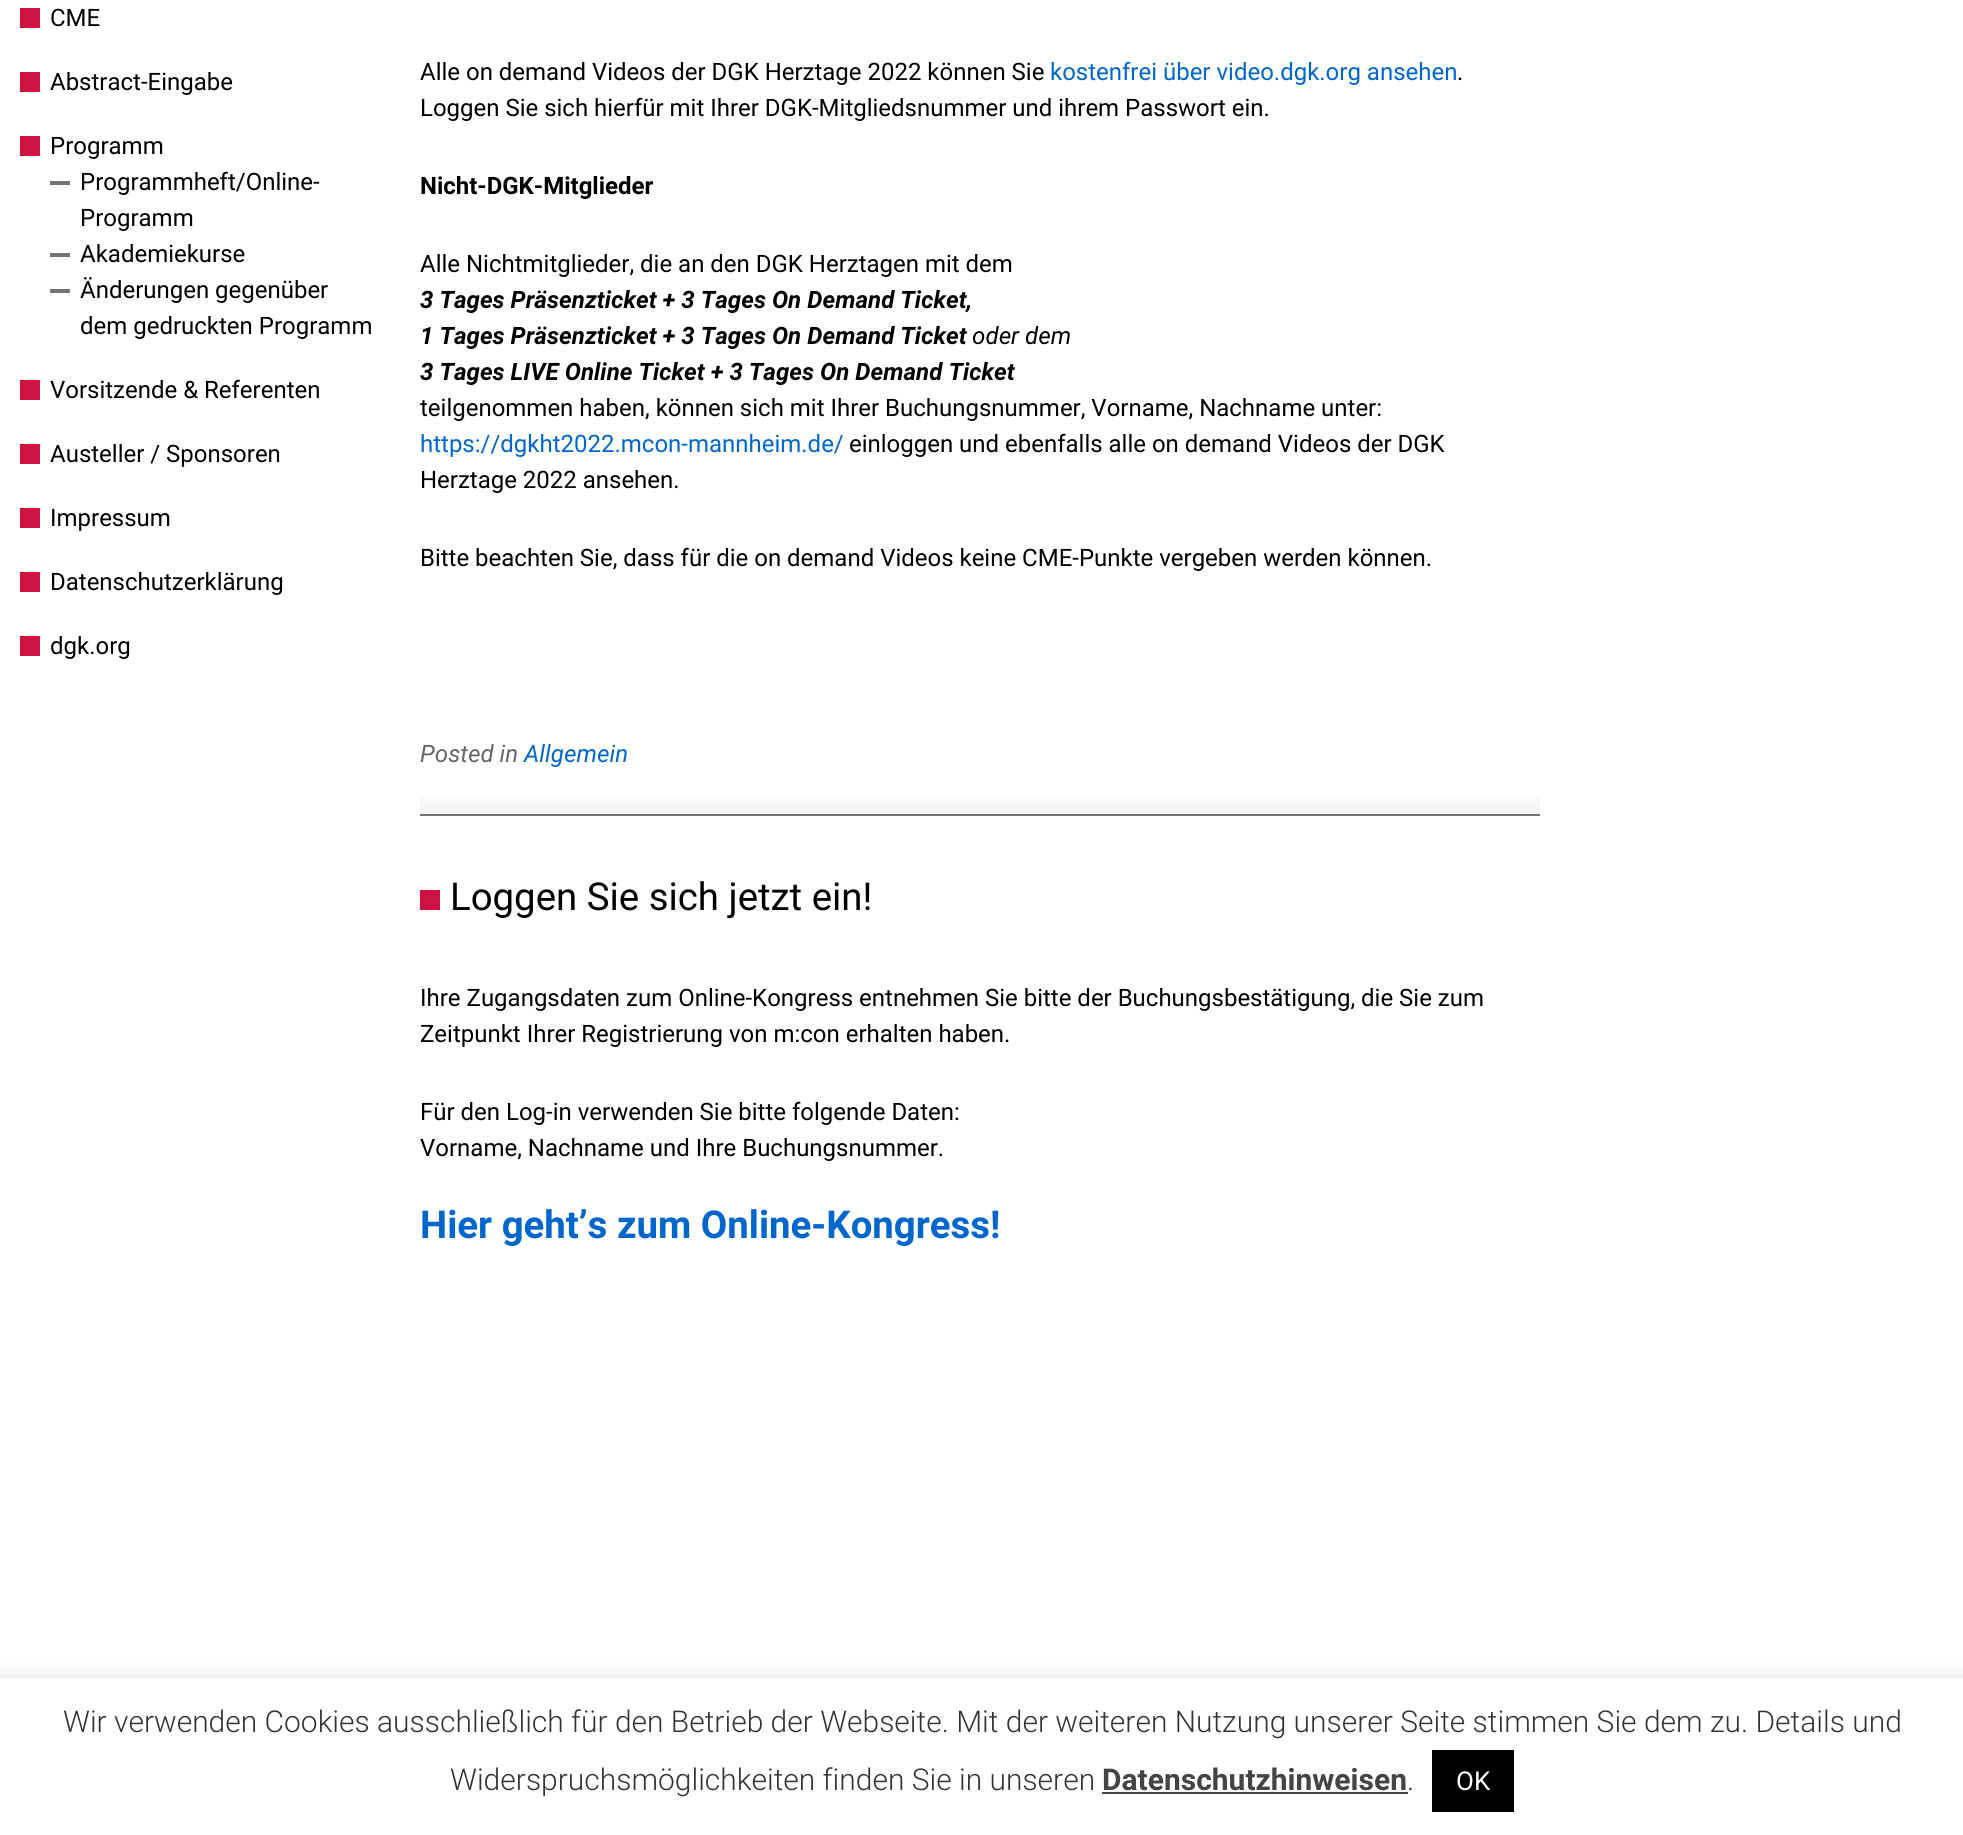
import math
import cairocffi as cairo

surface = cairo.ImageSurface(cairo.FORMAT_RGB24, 1963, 1835)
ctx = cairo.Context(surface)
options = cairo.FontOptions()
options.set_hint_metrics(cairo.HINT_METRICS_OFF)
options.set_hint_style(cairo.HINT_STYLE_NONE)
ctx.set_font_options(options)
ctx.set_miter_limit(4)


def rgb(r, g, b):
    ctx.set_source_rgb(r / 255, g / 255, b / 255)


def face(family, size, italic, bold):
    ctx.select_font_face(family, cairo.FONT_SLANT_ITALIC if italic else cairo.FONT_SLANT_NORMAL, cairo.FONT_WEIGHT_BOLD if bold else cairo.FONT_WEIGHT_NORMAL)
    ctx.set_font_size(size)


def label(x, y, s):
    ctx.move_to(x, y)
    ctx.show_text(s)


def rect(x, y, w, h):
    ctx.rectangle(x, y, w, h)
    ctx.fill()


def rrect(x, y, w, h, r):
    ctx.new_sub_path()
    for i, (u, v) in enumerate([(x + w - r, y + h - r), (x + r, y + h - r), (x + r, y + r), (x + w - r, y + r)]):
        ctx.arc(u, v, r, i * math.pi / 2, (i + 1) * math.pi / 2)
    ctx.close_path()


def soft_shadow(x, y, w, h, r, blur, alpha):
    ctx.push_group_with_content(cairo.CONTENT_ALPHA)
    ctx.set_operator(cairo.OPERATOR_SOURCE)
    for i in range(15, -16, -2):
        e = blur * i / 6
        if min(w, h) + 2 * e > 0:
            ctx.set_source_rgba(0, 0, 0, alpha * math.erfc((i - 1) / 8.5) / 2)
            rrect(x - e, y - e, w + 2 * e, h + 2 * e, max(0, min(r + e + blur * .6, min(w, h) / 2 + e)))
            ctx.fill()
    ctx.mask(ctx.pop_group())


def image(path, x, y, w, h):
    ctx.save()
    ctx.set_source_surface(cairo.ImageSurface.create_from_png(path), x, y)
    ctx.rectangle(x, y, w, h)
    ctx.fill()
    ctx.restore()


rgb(255, 255, 255)
ctx.paint()
rgb(206, 19, 66)
rect(20, 8, 20, 20)
face('Roboto', 24, 0, 0)
rgb(0, 0, 0)
label(50, 26, 'CME')
rgb(206, 19, 66)
rect(20, 72, 20, 20)
rgb(0, 0, 0)
label(50, 90, 'Abstract-Eingabe')
rgb(206, 19, 66)
rect(20, 136, 20, 20)
rgb(0, 0, 0)
label(50, 154, 'Programm')
rgb(116, 116, 116)
rect(50, 181, 20, 4)
rgb(0, 0, 0)
label(80, 190, 'Programmheft/Online-')
label(80, 226, 'Programm')
rgb(116, 116, 116)
rect(50, 253, 20, 4)
rgb(0, 0, 0)
label(80, 262, 'Akademiekurse')
rgb(116, 116, 116)
rect(50, 289, 20, 4)
rgb(0, 0, 0)
label(80, 298, 'Änderungen gegenüber')
label(80, 334, 'dem gedruckten Programm')
rgb(206, 19, 66)
rect(20, 380, 20, 20)
rgb(0, 0, 0)
label(50, 398, 'Vorsitzende & Referenten')
rgb(206, 19, 66)
rect(20, 444, 20, 20)
rgb(0, 0, 0)
label(50, 462, 'Austeller / Sponsoren')
rgb(206, 19, 66)
rect(20, 508, 20, 20)
rgb(0, 0, 0)
label(50, 526, 'Impressum')
rgb(206, 19, 66)
rect(20, 572, 20, 20)
rgb(0, 0, 0)
label(50, 590, 'Datenschutzerklärung')
rgb(206, 19, 66)
rect(20, 636, 20, 20)
rgb(0, 0, 0)
label(50, 654, 'dgk.org')
image('image0.png', 420, 797, 1120, 17)
rgb(119, 119, 119)
rect(420, 814, 1120, 2)
rgb(0, 0, 0)
label(420, 80, 'Alle on demand Videos der DGK Herztage 2022 können Sie')
rgb(0, 102, 204)
label(1050, 80, 'kostenfrei über video.dgk.org ansehen')
rgb(0, 0, 0)
label(1457, 80, '.')
label(420, 116, 'Loggen Sie sich hierfür mit Ihrer DGK-Mitgliedsnummer und ihrem Passwort ein.')
face('Roboto', 24, 0, 1)
label(420, 194, 'Nicht-DGK-Mitglieder')
face('Roboto', 24, 0, 0)
label(420, 272, 'Alle Nichtmitglieder, die an den DGK Herztagen mit dem')
face('Roboto', 24, 1, 1)
label(420, 308, '3 Tages Präsenzticket + 3 Tages On Demand Ticket,')
label(420, 344, '1 Tages Präsenzticket + 3 Tages On Demand Ticket')
face('Roboto', 24, 1, 0)
label(972, 344, 'oder dem')
face('Roboto', 24, 1, 1)
label(420, 380, '3 Tages LIVE Online Ticket + 3 Tages On Demand Ticket')
face('Roboto', 24, 0, 0)
label(420, 416, 'teilgenommen haben, können sich mit Ihrer Buchungsnummer, Vorname, Nachname unter:')
rgb(0, 102, 204)
label(420, 452, 'https://dgkht2022.mcon-mannheim.de/')
rgb(0, 0, 0)
label(849, 452, 'einloggen und ebenfalls alle on demand Videos der DGK')
label(420, 488, 'Herztage 2022 ansehen.')
label(420, 566, 'Bitte beachten Sie, dass für die on demand Videos keine CME-Punkte vergeben werden können.')
face('Roboto', 24, 1, 0)
rgb(102, 102, 102)
label(420, 762, 'Posted in')
rgb(0, 102, 204)
label(524, 762, 'Allgemein')
face('Roboto', 38.4, 0, 0)
rgb(0, 0, 0)
label(450, 910, 'Loggen Sie sich jetzt ein!')
rgb(206, 19, 66)
rect(420, 890, 20, 20)
face('Roboto', 24, 0, 0)
rgb(0, 0, 0)
label(420, 1006, 'Ihre Zugangsdaten zum Online-Kongress entnehmen Sie bitte der Buchungsbestätigung, die Sie zum')
label(420, 1042, 'Zeitpunkt Ihrer Registrierung von m:con erhalten haben.')
label(420, 1120, 'Für den Log-in verwenden Sie bitte folgende Daten:')
label(420, 1156, 'Vorname, Nachname und Ihre Buchungsnummer.')
face('Roboto', 38.4, 0, 1)
rgb(0, 102, 204)
label(420, 1238, 'Hier geht’s zum Online-Kongress!')
ctx.save()
ctx.rectangle(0, 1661, 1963, 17)
ctx.clip()
rgb(172, 171, 171)
soft_shadow(0, 1676, 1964, 158, 0, 10, 0.3)
ctx.restore()
face('Roboto Light', 30, 0, 0)
rgb(51, 51, 51)
label(63, 1732, 'Wir verwenden Cookies ausschließlich für den Betrieb der Webseite. Mit der weiteren Nutzung unserer Seite stimmen Sie dem zu. Details und')
label(450, 1790, 'Widerspruchsmöglichkeiten finden Sie in unseren')
face('Roboto', 30, 0, 1)
rgb(68, 68, 68)
label(1102, 1790, 'Datenschutzhinweisen')
rect(1102, 1792, 306, 2)
face('Roboto Light', 30, 0, 0)
rgb(51, 51, 51)
label(1407, 1790, '.')
rgb(0, 0, 0)
rect(1432, 1750, 82, 62)
face('Roboto', 26, 0, 0)
rgb(255, 255, 255)
label(1456, 1790, 'OK')
surface.write_to_png('render.png')
